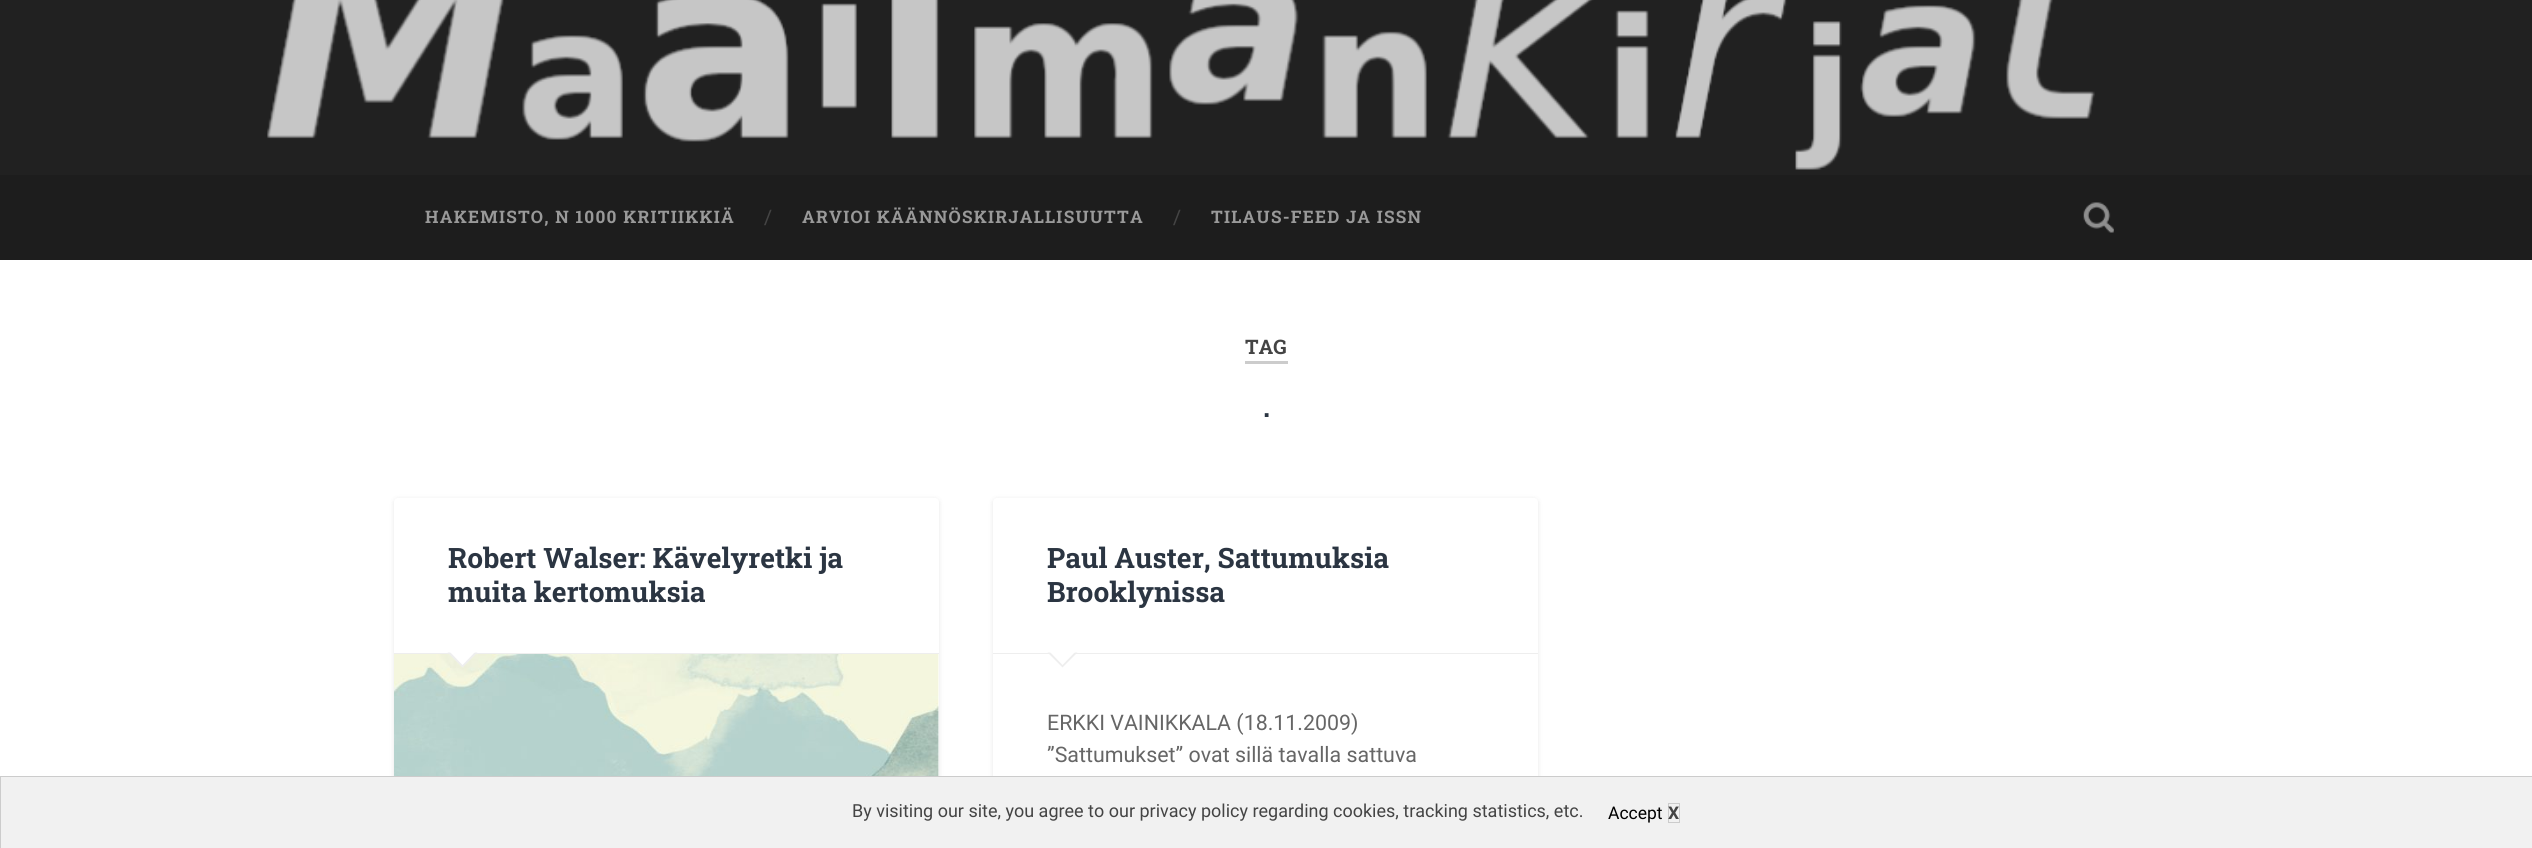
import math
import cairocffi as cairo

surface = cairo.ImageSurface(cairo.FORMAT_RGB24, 2532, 848)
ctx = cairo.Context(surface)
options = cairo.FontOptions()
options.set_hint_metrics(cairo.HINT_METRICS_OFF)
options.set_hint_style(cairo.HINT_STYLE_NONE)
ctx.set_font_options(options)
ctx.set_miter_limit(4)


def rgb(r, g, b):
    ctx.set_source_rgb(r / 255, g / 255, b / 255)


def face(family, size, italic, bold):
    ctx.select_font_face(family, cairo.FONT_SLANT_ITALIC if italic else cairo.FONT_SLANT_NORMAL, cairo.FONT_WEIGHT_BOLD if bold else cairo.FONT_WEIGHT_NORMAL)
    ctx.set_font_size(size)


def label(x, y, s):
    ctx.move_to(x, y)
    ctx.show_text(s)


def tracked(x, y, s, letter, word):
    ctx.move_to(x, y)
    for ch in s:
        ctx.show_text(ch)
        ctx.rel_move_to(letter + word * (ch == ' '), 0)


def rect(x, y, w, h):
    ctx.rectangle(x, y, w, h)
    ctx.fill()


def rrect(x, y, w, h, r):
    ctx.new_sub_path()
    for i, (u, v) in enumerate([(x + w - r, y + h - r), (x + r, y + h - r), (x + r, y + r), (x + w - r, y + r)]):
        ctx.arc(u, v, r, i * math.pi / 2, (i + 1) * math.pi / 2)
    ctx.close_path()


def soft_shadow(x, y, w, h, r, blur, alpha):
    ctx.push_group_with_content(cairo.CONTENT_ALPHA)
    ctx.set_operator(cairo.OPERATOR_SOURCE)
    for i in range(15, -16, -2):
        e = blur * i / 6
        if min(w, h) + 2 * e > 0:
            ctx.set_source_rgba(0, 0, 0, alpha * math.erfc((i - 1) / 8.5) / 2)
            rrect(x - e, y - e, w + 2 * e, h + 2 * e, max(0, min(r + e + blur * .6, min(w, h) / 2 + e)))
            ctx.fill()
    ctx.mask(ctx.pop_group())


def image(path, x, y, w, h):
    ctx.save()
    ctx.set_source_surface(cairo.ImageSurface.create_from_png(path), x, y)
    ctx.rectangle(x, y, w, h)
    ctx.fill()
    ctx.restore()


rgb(255, 255, 255)
ctx.paint()
image('image0.png', 0, 0, 2532, 175)
rgb(29, 29, 29)
rect(0, 175, 2532, 85)
face('Roboto Slab', 17.25, 0, 1)
rgb(153, 153, 153)
tracked(425, 223, 'HAKEMISTO, N 1000 KRITIIKKIÄ', 1.25, 0)
face('Roboto Slab', 20, 0, 0)
rgb(68, 68, 68)
label(764, 224, '/')
face('Roboto Slab', 17.25, 0, 1)
rgb(153, 153, 153)
tracked(802, 223, 'ARVIOI KÄÄNNÖSKIRJALLISUUTTA', 1.25, 0)
face('Roboto Slab', 20, 0, 0)
rgb(68, 68, 68)
label(1173, 224, '/')
face('Roboto Slab', 17.25, 0, 1)
rgb(153, 153, 153)
tracked(1211, 223, 'TILAUS-FEED JA ISSN', 1.25, 0)
image('image1.png', 2083, 202, 31, 31)
rgb(204, 204, 204)
rect(1245, 361, 43, 3)
face('Roboto Slab', 20, 0, 1)
rgb(68, 68, 68)
label(1245, 354, 'TAG')
face('Roboto Slab', 39, 0, 0)
rgb(43, 53, 66)
label(1262, 417, '.')
rgb(0, 0, 0)
soft_shadow(394, 499, 545, 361, 4, 2.5, 0.1)
rgb(255, 255, 255)
rrect(394, 498, 545, 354, 4)
ctx.fill()
rgb(238, 238, 238)
rect(394, 653, 545, 1)
face('Roboto Slab', 28.1, 0, 1)
rgb(43, 53, 66)
label(448, 568, 'Robert Walser: Kävelyretki ja')
label(448, 602, 'muita kertomuksia')
image('image2.png', 394, 654, 545, 122)
rgb(238, 238, 238)
ctx.new_path()
ctx.move_to(447.5, 652.5)
ctx.line_to(477.5, 652.5)
ctx.line_to(462.5, 667.5)
ctx.close_path()
ctx.fill()
rgb(255, 255, 255)
ctx.new_path()
ctx.move_to(449, 651)
ctx.line_to(476, 651)
ctx.line_to(462.5, 665)
ctx.close_path()
ctx.fill()
rgb(0, 0, 0)
soft_shadow(993, 499, 545, 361, 4, 2.5, 0.1)
rgb(255, 255, 255)
rrect(993, 498, 545, 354, 4)
ctx.fill()
rgb(238, 238, 238)
rect(993, 653, 545, 1)
rgb(43, 53, 66)
label(1047, 568, 'Paul Auster, Sattumuksia')
label(1047, 602, 'Brooklynissa')
rgb(238, 238, 238)
ctx.new_path()
ctx.move_to(1047.5, 652.5)
ctx.line_to(1077.5, 652.5)
ctx.line_to(1062.5, 667.5)
ctx.close_path()
ctx.fill()
rgb(255, 255, 255)
ctx.new_path()
ctx.move_to(1049, 651)
ctx.line_to(1076, 651)
ctx.line_to(1062.5, 665)
ctx.close_path()
ctx.fill()
face('Roboto', 21.4, 0, 0)
rgb(102, 102, 102)
label(1047, 730, 'ERKKI VAINIKKALA (18.11.2009)')
label(1047, 762, '”Sattumukset” ovat sillä tavalla sattuva')
rgb(241, 241, 241)
ctx.rectangle(0.5, 776.5, 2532, 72)
ctx.fill_preserve()
rgb(204, 204, 204)
ctx.set_line_width(1)
ctx.stroke()
face('Roboto', 18, 0, 0)
rgb(68, 68, 68)
label(852, 817, 'By visiting our site, you agree to our privacy policy regarding cookies, tracking statistics, etc.')
face('Roboto', 17.5, 0, 0)
rgb(0, 0, 0)
label(1608, 819, 'Accept')
ctx.rectangle(1668.5, 803.5, 11, 19)
rgb(204, 204, 204)
ctx.stroke()
face('Roboto', 17.5, 0, 1)
rgb(68, 68, 68)
label(1668, 819, 'X')
surface.write_to_png('render.png')
